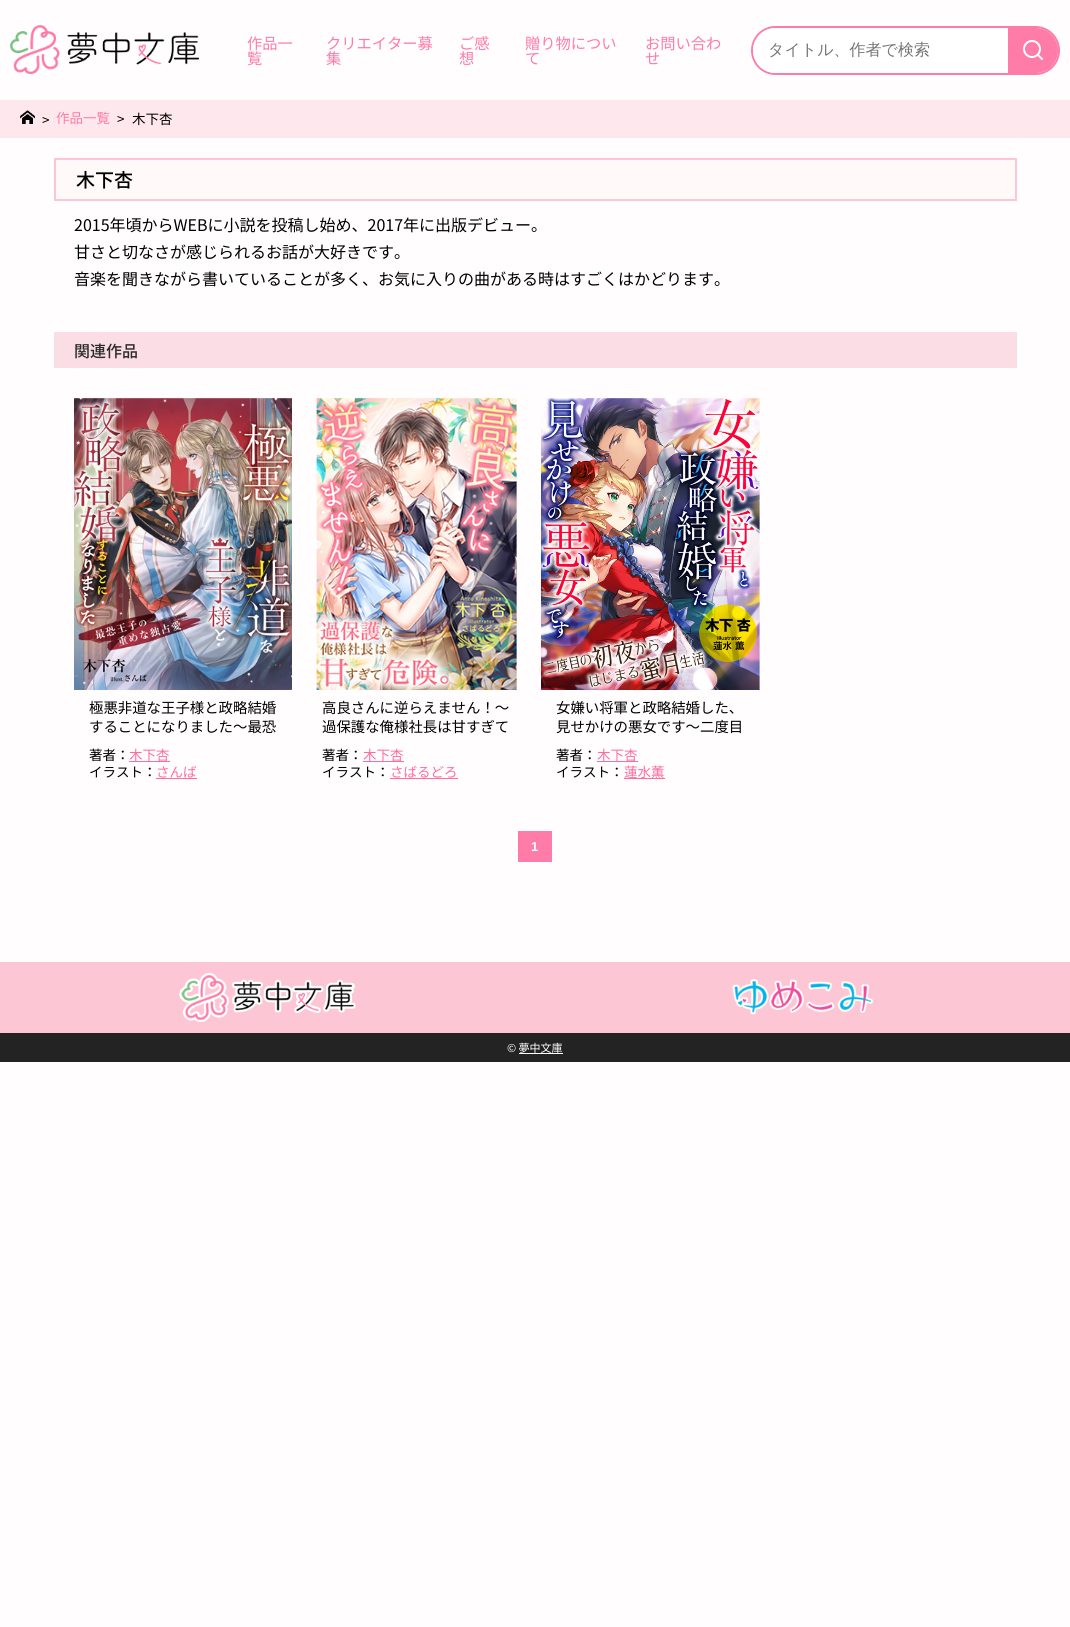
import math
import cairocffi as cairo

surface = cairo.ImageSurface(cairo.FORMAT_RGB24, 1070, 1627)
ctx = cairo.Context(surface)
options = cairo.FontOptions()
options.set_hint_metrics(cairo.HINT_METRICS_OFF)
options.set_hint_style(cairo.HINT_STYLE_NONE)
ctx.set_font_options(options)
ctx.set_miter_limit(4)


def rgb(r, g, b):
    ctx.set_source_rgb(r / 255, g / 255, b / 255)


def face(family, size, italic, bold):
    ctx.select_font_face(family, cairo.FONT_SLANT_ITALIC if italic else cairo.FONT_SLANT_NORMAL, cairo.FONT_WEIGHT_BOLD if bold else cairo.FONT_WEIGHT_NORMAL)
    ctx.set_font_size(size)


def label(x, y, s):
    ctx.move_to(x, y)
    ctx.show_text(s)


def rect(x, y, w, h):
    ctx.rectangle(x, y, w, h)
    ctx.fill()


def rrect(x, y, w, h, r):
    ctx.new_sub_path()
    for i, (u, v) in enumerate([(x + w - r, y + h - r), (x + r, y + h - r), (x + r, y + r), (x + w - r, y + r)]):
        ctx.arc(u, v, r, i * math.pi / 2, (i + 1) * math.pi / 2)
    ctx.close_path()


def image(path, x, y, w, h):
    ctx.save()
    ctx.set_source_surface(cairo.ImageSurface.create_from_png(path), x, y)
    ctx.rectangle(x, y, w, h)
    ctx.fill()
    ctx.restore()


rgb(255, 253, 254)
ctx.paint()
image('image0.png', 10, 25, 189, 49)
face('Noto Sans JP', 15.25, 0, 0)
rgb(255, 123, 168)
label(247, 49, '作品一')
label(247, 64, '覧')
label(326, 49, 'クリエイター募')
label(326, 64, '集')
label(459, 49, 'ご感')
label(459, 64, '想')
label(525, 49, '贈り物につい')
label(525, 64, 'て')
label(645, 49, 'お問い合わ')
label(645, 64, 'せ')
rrect(752, 27, 307, 47, 23.5)
ctx.stroke()
rgb(255, 255, 255)
ctx.new_path()
ctx.move_to(775.5, 28)
ctx.line_to(1008, 28)
ctx.line_to(1008, 73)
ctx.line_to(775.5, 73)
ctx.curve_to(763, 73, 753, 63, 753, 50.5)
ctx.curve_to(753, 38, 763, 28, 775.5, 28)
ctx.close_path()
ctx.fill()
face('WenQuanYi Zen Hei Medium', 16, 0, 0)
rgb(117, 117, 117)
label(768, 55, 'タイトル、作者で検索')
rgb(255, 123, 168)
ctx.new_path()
ctx.move_to(1008, 28)
ctx.line_to(1035.5, 28)
ctx.curve_to(1048, 28, 1058, 38, 1058, 50.5)
ctx.curve_to(1058, 63, 1048, 73, 1035.5, 73)
ctx.line_to(1008, 73)
ctx.close_path()
ctx.fill()
image('image1.png', 1023, 40, 21, 21)
rgb(255, 231, 238)
rect(0, 100, 1070, 38)
image('image2.png', 20, 110, 15, 14)
face('Noto Sans JP', 13.5, 0, 0)
rgb(0, 0, 0)
label(42, 125, '>')
rgb(255, 123, 168)
label(56, 123, '作品一覧')
rgb(0, 0, 0)
label(117, 124, '>')
label(132, 124, '木下杏')
rgb(255, 249, 249)
ctx.rectangle(55, 159, 961, 41)
ctx.fill_preserve()
rgb(252, 198, 212)
ctx.stroke()
face('Noto Sans JP Medium', 19, 0, 0)
rgb(0, 0, 0)
label(76, 187, '木下杏')
face('Noto Sans JP', 16, 0, 0)
label(74, 231, '2015年頃からWEBに小説を投稿し始め、2017年に出版デビュー。')
label(74, 258, '甘さと切なさが感じられるお話が大好きです。')
label(74, 285, '音楽を聞きながら書いていることが多く、お気に入りの曲がある時はすごくはかどります。')
rgb(250, 221, 229)
rect(54, 332, 963, 36)
face('Noto Sans JP Medium', 16, 0, 0)
rgb(44, 44, 44)
label(74, 357, '関連作品')
image('image3.png', 74, 398, 218, 292)
face('Noto Sans JP', 14.4, 0, 0)
rgb(0, 0, 0)
label(89, 713, '極悪非道な王子様と政略結婚')
label(89, 732, 'することになりました～最恐')
face('Noto Sans JP', 13.5, 0, 0)
label(89, 760, '著者：')
rgb(255, 108, 157)
rect(129, 761, 41, 1)
label(129, 760, '木下杏')
rgb(0, 0, 0)
label(89, 777, 'イラスト：')
rgb(255, 108, 157)
label(156, 777, 'さんば')
rect(156, 778, 41, 1)
image('image4.png', 316, 398, 201, 292)
face('Noto Sans JP', 14.4, 0, 0)
rgb(0, 0, 0)
label(322, 713, '高良さんに逆らえません！～')
label(322, 732, '過保護な俺様社長は甘すぎて')
face('Noto Sans JP', 13.5, 0, 0)
label(322, 760, '著者：')
rgb(255, 108, 157)
rect(363, 761, 41, 1)
label(363, 760, '木下杏')
rgb(0, 0, 0)
label(322, 777, 'イラスト：')
rgb(255, 108, 157)
label(390, 777, 'さばるどろ')
rect(390, 778, 68, 1)
image('image5.png', 541, 398, 219, 292)
face('Noto Sans JP', 14.4, 0, 0)
rgb(0, 0, 0)
label(556, 713, '女嫌い将軍と政略結婚した、')
label(556, 732, '見せかけの悪女です～二度目')
face('Noto Sans JP', 13.5, 0, 0)
label(556, 760, '著者：')
rgb(255, 108, 157)
rect(597, 761, 41, 1)
label(597, 760, '木下杏')
rgb(0, 0, 0)
label(556, 777, 'イラスト：')
rgb(255, 108, 157)
rect(624, 778, 41, 1)
label(624, 777, '蓮水薫')
rgb(255, 123, 168)
rect(518, 831, 34, 31)
face('Liberation Sans', 13, 0, 1)
rgb(255, 255, 255)
label(531, 851, '1')
rgb(252, 198, 212)
rect(0, 962, 1070, 71)
image('image6.png', 179, 972, 177, 50)
image('image7.png', 732, 979, 142, 36)
rgb(35, 35, 35)
rect(0, 1033, 1070, 29)
face('Noto Sans JP', 11, 0, 0)
rgb(255, 255, 255)
label(507, 1052, '© 夢中文庫')
rect(519, 1053, 44, 1)
surface.write_to_png('render.png')
